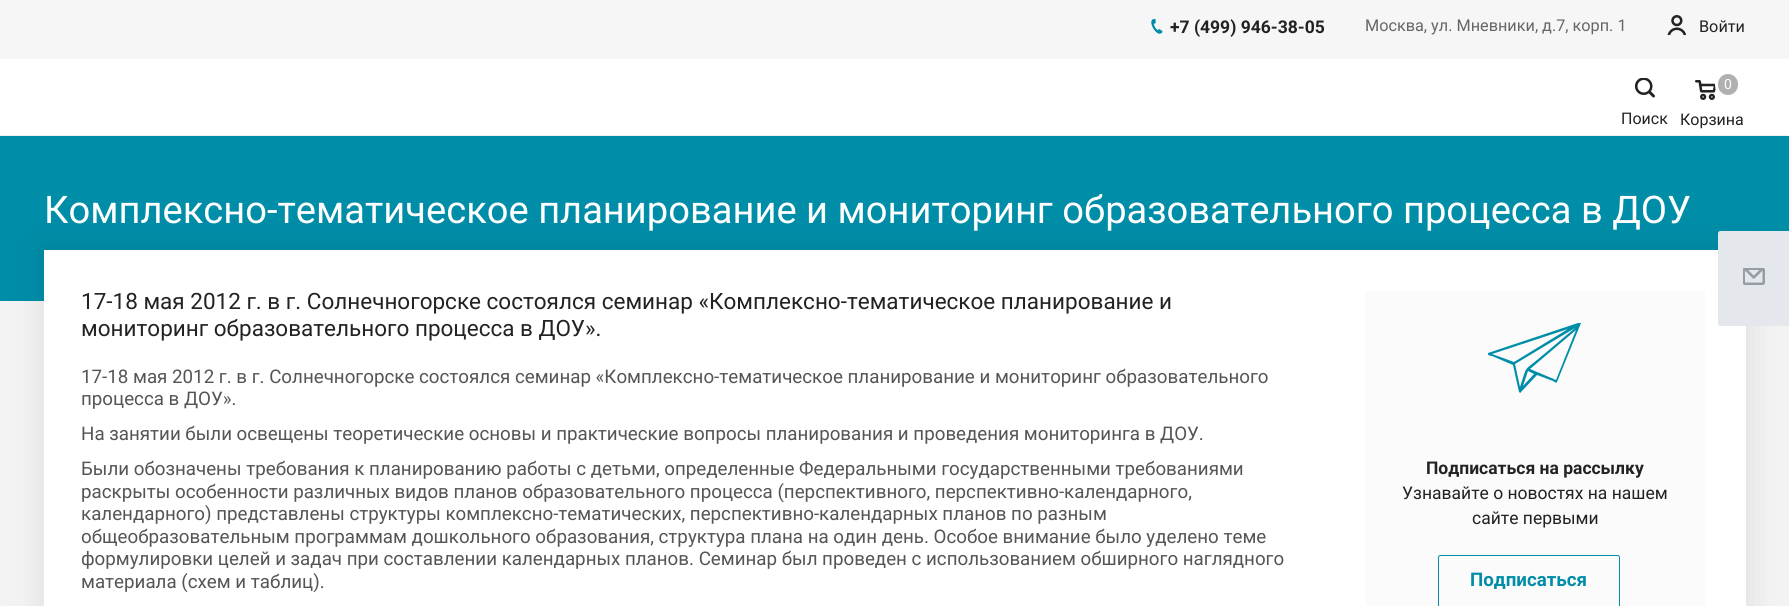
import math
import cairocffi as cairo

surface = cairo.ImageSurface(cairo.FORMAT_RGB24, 1789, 606)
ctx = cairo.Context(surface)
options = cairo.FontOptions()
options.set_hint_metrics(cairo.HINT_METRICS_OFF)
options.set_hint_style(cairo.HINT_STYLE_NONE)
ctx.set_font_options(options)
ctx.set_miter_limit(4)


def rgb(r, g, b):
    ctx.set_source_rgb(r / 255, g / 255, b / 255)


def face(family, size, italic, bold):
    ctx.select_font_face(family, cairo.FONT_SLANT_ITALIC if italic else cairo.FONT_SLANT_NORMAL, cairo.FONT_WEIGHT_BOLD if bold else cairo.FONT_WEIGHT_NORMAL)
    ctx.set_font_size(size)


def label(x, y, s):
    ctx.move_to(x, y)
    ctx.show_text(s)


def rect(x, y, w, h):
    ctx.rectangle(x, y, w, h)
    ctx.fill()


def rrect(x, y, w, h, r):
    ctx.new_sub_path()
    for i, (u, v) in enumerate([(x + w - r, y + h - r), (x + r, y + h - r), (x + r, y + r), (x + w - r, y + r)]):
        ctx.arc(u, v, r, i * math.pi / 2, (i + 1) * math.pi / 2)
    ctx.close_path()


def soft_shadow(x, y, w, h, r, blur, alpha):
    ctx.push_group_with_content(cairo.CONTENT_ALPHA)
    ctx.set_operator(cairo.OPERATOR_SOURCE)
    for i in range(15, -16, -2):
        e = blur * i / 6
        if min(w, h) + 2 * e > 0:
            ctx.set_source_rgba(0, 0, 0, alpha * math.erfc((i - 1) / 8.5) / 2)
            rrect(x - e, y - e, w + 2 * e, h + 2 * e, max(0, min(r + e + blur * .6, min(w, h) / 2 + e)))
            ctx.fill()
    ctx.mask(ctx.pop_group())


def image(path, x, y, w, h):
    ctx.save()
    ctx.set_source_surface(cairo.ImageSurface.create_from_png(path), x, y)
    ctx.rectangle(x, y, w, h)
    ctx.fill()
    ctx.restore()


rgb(243, 243, 243)
ctx.paint()
rgb(246, 246, 247)
rect(0, 0, 1789, 59)
image('image0.png', 1151, 19, 12, 15)
face('Roboto', 17.5, 0, 1)
rgb(34, 34, 34)
label(1170, 33, '+7 (499) 946-38-05')
face('Roboto', 16.25, 0, 0)
rgb(102, 102, 102)
label(1365, 31, 'Москва, ул. Мневники, д.7, корп. 1')
image('image1.png', 1667, 15, 19, 20)
rgb(34, 34, 34)
label(1699, 32, 'Войти')
rgb(255, 255, 255)
rect(0, 59, 1789, 76)
image('image2.png', 1635, 78, 20, 20)
face('Roboto', 16, 0, 0)
rgb(34, 34, 34)
label(1621, 124, 'Поиск')
image('image3.png', 1695, 80, 21, 20)
rgb(176, 176, 176)
rrect(1716.5, 72.5, 23, 24, 11.5)
ctx.fill_preserve()
rgb(255, 255, 255)
ctx.set_line_width(3)
ctx.stroke()
face('Roboto', 14, 0, 0)
label(1724, 89, '0')
face('Roboto', 16, 0, 0)
rgb(34, 34, 34)
label(1680, 125, 'Корзина')
rgb(240, 240, 240)
rect(0, 135, 1789, 1)
rgb(0, 141, 168)
rect(0, 136, 1789, 165)
face('Roboto', 38.1, 0, 0)
rgb(255, 255, 255)
label(44, 223, 'Комплексно-тематическое планирование и мониторинг образовательного процесса в ДОУ')
rgb(0, 0, 0)
soft_shadow(44, 250, 1702, 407, 0, 17, 0.1)
rgb(255, 255, 255)
rect(44, 250, 1702, 356)
face('Roboto', 22.5, 0, 0)
rgb(34, 34, 34)
label(81, 309, '17-18 мая 2012 г. в г. Солнечногорске состоялся семинар «Комплексно-тематическое планирование и')
label(81, 336, 'мониторинг образовательного процесса в ДОУ».')
face('Roboto', 18.75, 0, 0)
rgb(85, 85, 85)
label(81, 383, '17-18 мая 2012 г. в г. Солнечногорске состоялся семинар «Комплексно-тематическое планирование и мониторинг образовательного')
label(81, 405, 'процесса в ДОУ».')
label(81, 440, 'На занятии были освещены теоретические основы и практические вопросы планирования и проведения мониторинга в ДОУ.')
label(81, 475, 'Были обозначены требования к планированию работы с детьми, определенные Федеральными государственными требованиями')
label(81, 498, 'раскрыты особенности различных видов планов образовательного процесса (перспективного, перспективно-календарного,')
label(81, 520, 'календарного) представлены структуры комплексно-тематических, перспективно-календарных планов по разным')
label(81, 543, 'общеобразовательным программам дошкольного образования, структура плана на один день. Особое внимание было уделено теме')
label(81, 565, 'формулировки целей и задач при составлении календарных планов. Семинар был проведен с использованием обширного наглядного')
label(81, 588, 'материала (схем и таблиц).')
rgb(251, 251, 251)
rect(1365, 291, 340, 315)
ctx.save()
ctx.rectangle(1488, 323, 95, 70)
ctx.clip()
rgb(0, 141, 168)
ctx.set_fill_rule(cairo.FILL_RULE_EVEN_ODD)
ctx.new_path()
ctx.move_to(1581, 323)
ctx.line_to(1557, 382)
ctx.curve_to(1557, 384, 1553, 381, 1553, 381)
ctx.line_to(1537, 375)
ctx.line_to(1521, 392)
ctx.curve_to(1521, 393, 1520, 393, 1519, 392)
ctx.line_to(1513, 365)
ctx.line_to(1492, 356)
ctx.curve_to(1490, 356, 1487, 355, 1488, 353)
ctx.line_to(1578, 323)
ctx.curve_to(1578, 323, 1581, 322, 1581, 323)
ctx.close_path()
ctx.move_to(1556, 380)
ctx.line_to(1576, 330)
ctx.line_to(1530, 369)
ctx.close_path()
ctx.move_to(1534, 374)
ctx.line_to(1528, 371)
ctx.line_to(1523, 386)
ctx.close_path()
ctx.move_to(1520, 387)
ctx.curve_to(1528, 363, 1522, 373, 1543, 355)
ctx.line_to(1575, 328)
ctx.line_to(1515, 364)
ctx.close_path()
ctx.move_to(1514, 362)
ctx.line_to(1568, 329)
ctx.line_to(1492, 354)
ctx.close_path()
ctx.fill()
ctx.restore()
face('Roboto', 17.5, 0, 1)
rgb(34, 34, 34)
label(1426, 474, 'Подписаться на рассылку')
face('Roboto', 17.5, 0, 0)
label(1402, 499, 'Узнавайте о новостях на нашем')
label(1472, 524, 'сайте первыми')
rrect(1438.5, 555.5, 181, 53, 2)
rgb(0, 141, 168)
ctx.set_line_width(1)
ctx.stroke()
face('Roboto', 18.75, 0, 1)
label(1470, 586, 'Подписаться')
rgb(228, 232, 236)
ctx.new_path()
ctx.move_to(1720.5, 231)
ctx.line_to(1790, 231)
ctx.line_to(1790, 326)
ctx.line_to(1720.5, 326)
ctx.curve_to(1719, 326, 1718, 325, 1718, 323.5)
ctx.line_to(1718, 233.5)
ctx.curve_to(1718, 232, 1719, 231, 1720.5, 231)
ctx.close_path()
ctx.fill()
image('image4.png', 1743, 268, 22, 17)
surface.write_to_png('render.png')
